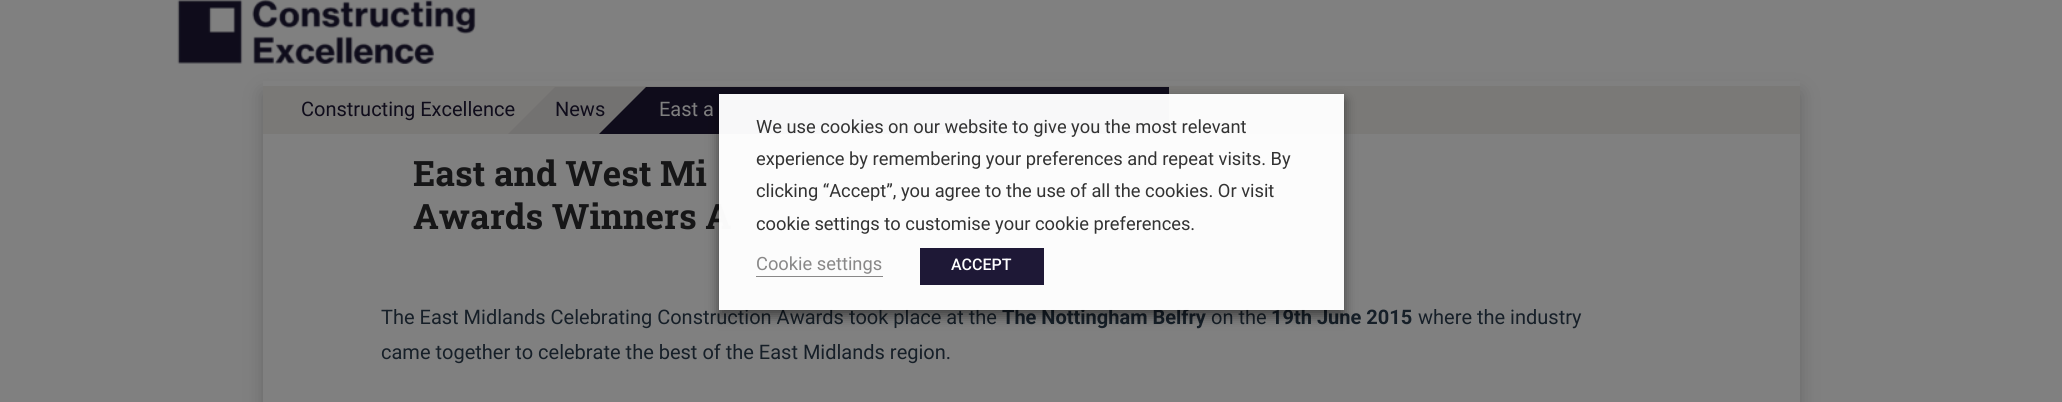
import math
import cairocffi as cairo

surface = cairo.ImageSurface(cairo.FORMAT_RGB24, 2062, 402)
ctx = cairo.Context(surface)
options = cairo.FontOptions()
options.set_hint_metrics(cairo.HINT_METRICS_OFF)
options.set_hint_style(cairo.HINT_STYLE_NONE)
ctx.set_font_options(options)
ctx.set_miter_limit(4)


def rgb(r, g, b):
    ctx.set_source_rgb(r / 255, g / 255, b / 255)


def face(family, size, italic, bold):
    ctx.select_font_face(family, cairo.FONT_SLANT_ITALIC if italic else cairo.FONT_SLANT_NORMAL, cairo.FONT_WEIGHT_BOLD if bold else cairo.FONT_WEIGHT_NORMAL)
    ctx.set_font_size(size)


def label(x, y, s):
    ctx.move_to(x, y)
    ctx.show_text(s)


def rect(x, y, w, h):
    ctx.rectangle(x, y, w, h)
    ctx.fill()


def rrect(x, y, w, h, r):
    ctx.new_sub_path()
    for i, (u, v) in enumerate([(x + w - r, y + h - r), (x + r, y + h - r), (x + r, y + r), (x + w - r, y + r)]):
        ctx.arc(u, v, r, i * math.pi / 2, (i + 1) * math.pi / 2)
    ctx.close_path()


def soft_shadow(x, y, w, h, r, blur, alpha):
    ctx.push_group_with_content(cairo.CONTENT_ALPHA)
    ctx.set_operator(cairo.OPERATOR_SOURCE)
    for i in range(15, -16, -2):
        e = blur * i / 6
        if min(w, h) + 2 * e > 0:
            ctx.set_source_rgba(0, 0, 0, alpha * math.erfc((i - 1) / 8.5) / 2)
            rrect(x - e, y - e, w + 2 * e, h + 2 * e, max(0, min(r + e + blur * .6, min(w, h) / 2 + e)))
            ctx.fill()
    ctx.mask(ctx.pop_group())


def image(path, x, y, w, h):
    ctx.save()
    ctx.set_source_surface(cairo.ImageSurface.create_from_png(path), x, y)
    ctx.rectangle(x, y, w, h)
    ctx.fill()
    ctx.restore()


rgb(128, 128, 128)
ctx.paint()
rgb(0, 0, 0)
soft_shadow(263, 93, 1537, 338, 0, 9.5, 0.2)
ctx.set_source_rgba(0.502, 0.502, 0.502, 0.95)
rect(263, 81, 1537, 5)
image('image0.png', 177, 0, 299, 64)
rgb(128, 128, 128)
rect(263, 134, 1537, 268)
rgb(122, 121, 119)
rect(263, 86, 1537, 48)
rgb(115, 114, 113)
ctx.new_path()
ctx.move_to(555, 87)
ctx.line_to(666, 87)
ctx.line_to(619, 134)
ctx.line_to(508, 134)
ctx.close_path()
ctx.fill()
face('Roboto', 20, 0, 0)
rgb(15, 12, 27)
label(301, 116, 'Constructing Excellence')
ctx.save()
ctx.rectangle(599, 86, 570, 48)
ctx.clip()
ctx.new_path()
ctx.move_to(646, 87)
ctx.line_to(1216, 87)
ctx.line_to(1169, 134)
ctx.line_to(599, 134)
ctx.close_path()
ctx.fill()
ctx.restore()
label(555, 116, 'News')
rgb(128, 128, 128)
label(659, 116, 'East a')
face('Roboto Slab', 35, 0, 1)
rgb(22, 22, 23)
label(413, 186, 'East and West Mi')
label(413, 229, 'Awards Winners A')
face('Roboto', 20, 0, 0)
rgb(22, 31, 40)
label(381, 324, 'The East Midlands Celebrating Construction Awards took place at the')
face('Roboto', 20, 0, 1)
label(1002, 324, 'The Nottingham Belfry')
face('Roboto', 20, 0, 0)
label(1211, 324, 'on the')
face('Roboto', 20, 0, 1)
label(1271, 324, '19th June 2015')
face('Roboto', 20, 0, 0)
label(1418, 324, 'where the industry')
label(381, 359, 'came together to celebrate the best of the East Midlands region.')
ctx.save()
ctx.set_fill_rule(cairo.FILL_RULE_EVEN_ODD)
ctx.new_path()
ctx.move_to(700, 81)
ctx.line_to(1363, 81)
ctx.line_to(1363, 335)
ctx.line_to(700, 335)
ctx.close_path()
ctx.move_to(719, 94)
ctx.line_to(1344, 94)
ctx.line_to(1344, 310)
ctx.line_to(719, 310)
ctx.close_path()
ctx.clip()
rgb(0, 0, 0)
soft_shadow(719, 100, 625, 216, 0, 6, 0.5)
ctx.restore()
ctx.set_source_rgba(1, 1, 1, 0.97)
rect(719, 94, 625, 216)
face('Roboto', 18.3, 0, 0)
rgb(51, 51, 51)
label(756, 133, 'We use cookies on our website to give you the most relevant')
label(756, 165, 'experience by remembering your preferences and repeat visits. By')
label(756, 197, 'clicking “Accept”, you agree to the use of all the cookies. Or visit')
label(756, 230, 'cookie settings to customise your cookie preferences.')
rgb(137, 136, 136)
label(756, 270, 'Cookie settings')
rect(756, 276, 127, 1)
rgb(30, 24, 54)
rect(920, 248, 124, 37)
face('Roboto Medium', 16, 0, 0)
rgb(255, 255, 255)
label(951, 270, 'ACCEPT')
surface.write_to_png('render.png')
